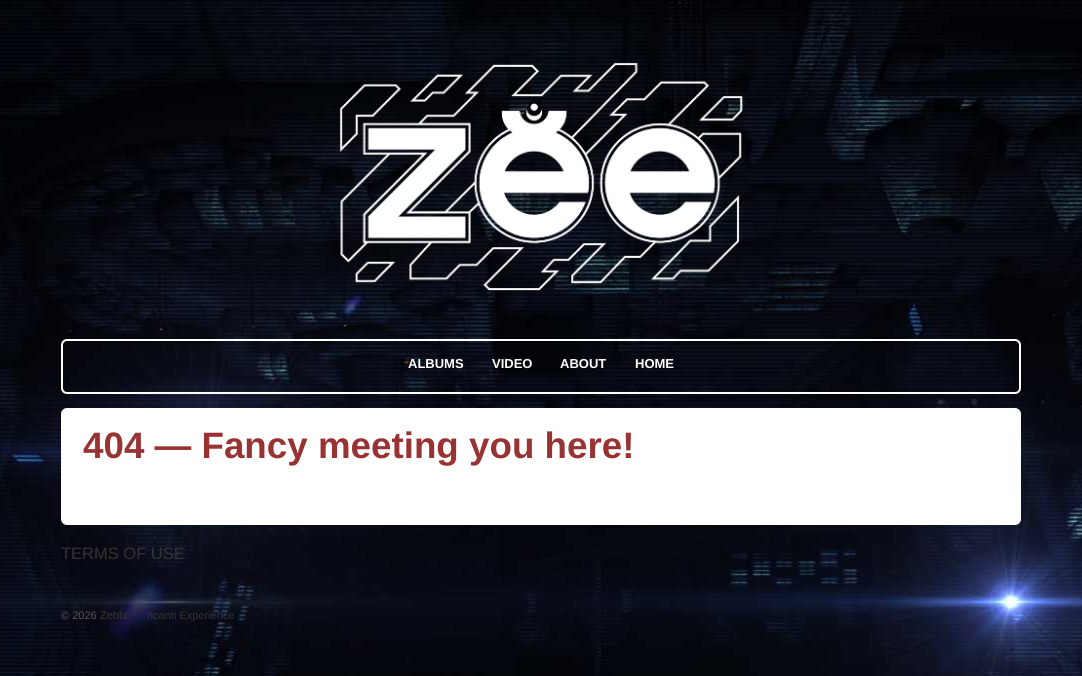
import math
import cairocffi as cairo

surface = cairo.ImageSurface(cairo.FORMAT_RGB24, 1082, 676)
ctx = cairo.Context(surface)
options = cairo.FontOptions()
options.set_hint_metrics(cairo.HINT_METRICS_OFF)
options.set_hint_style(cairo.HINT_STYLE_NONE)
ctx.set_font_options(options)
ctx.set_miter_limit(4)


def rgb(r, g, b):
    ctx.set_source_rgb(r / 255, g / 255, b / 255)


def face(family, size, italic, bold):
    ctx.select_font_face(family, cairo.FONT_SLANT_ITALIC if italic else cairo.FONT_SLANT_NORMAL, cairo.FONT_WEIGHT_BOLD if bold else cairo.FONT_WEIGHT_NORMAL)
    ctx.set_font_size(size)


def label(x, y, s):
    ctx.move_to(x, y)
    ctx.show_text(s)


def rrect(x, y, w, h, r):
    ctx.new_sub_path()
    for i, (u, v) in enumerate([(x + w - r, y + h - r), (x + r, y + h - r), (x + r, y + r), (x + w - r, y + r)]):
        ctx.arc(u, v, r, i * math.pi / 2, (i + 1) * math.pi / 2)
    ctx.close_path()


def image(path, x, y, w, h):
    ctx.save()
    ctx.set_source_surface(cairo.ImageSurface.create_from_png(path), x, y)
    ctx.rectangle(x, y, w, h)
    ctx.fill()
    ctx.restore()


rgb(255, 255, 255)
ctx.paint()
image('image0.png', 0, 0, 1082, 676)
image('image1.png', 339, 62, 404, 229)
rrect(62, 340, 958, 53, 5)
rgb(255, 255, 255)
ctx.stroke()
face('Liberation Sans', 13, 0, 1)
label(408, 368, 'ALBUMS')
label(492, 368, 'VIDEO')
label(560, 368, 'ABOUT')
label(635, 368, 'HOME')
rrect(62, 409, 958, 115, 5)
ctx.fill_preserve()
ctx.stroke()
face('Liberation Sans', 36.75, 0, 1)
rgb(153, 51, 51)
label(83, 458, '404 — Fancy meeting you here!')
face('Liberation Sans', 16.5, 0, 0)
rgb(51, 51, 51)
label(61, 559, 'TERMS OF USE')
face('Liberation Sans', 11, 0, 0)
rgb(85, 85, 85)
label(61, 619, '© 2026')
rgb(51, 51, 51)
label(100, 619, 'Zebbl')
label(147, 619, 'ncanti Experience')
surface.write_to_png('render.png')
